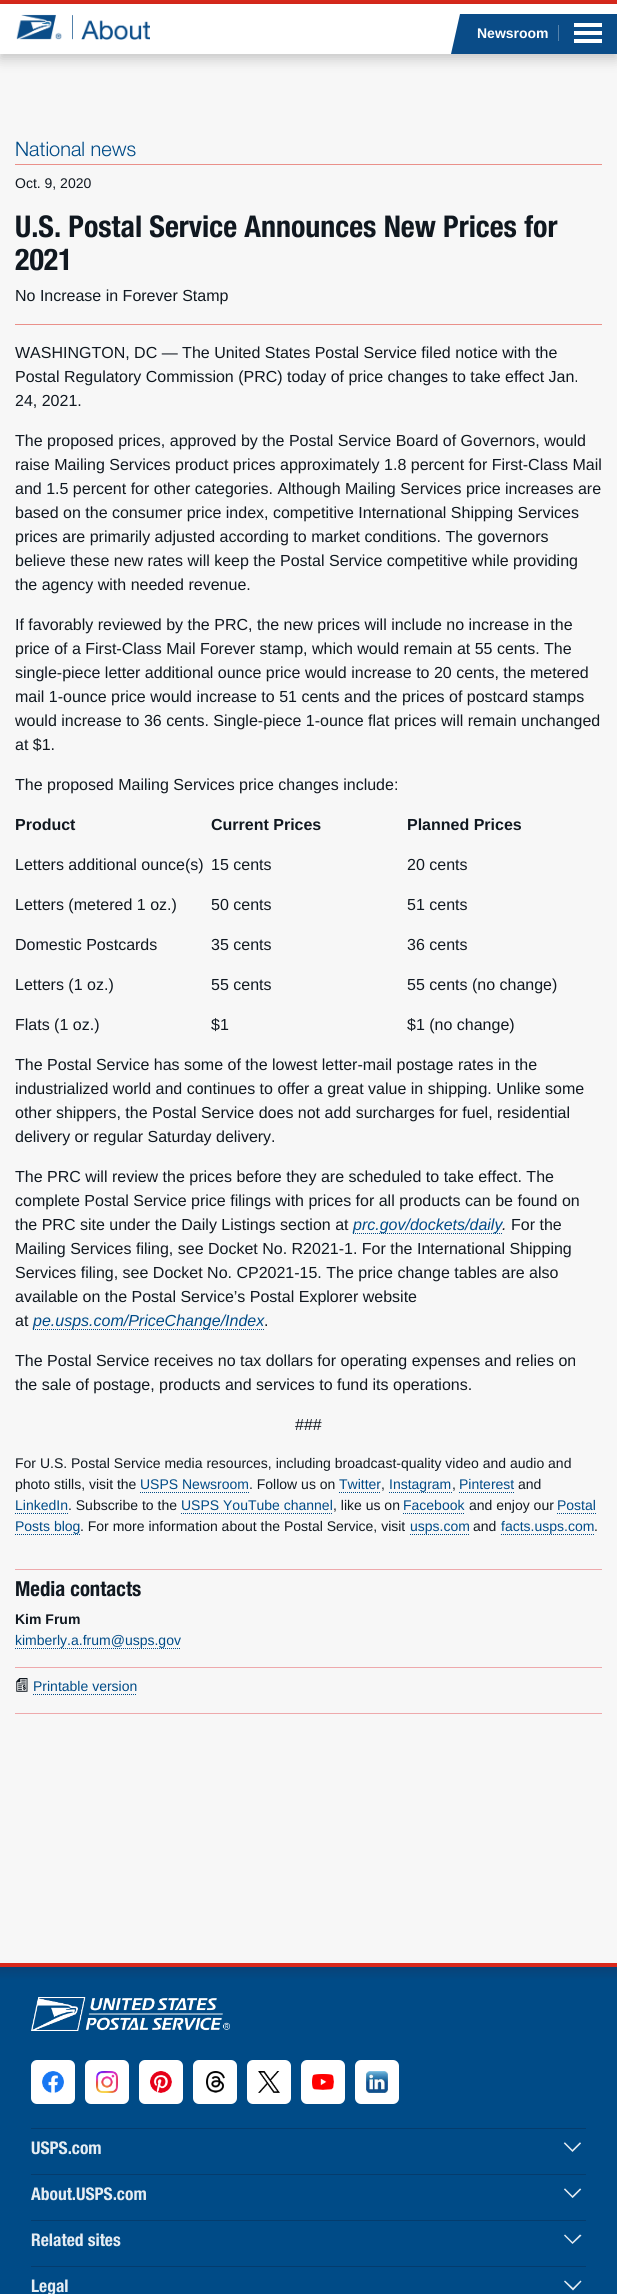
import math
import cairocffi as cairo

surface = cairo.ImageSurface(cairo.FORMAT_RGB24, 617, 2294)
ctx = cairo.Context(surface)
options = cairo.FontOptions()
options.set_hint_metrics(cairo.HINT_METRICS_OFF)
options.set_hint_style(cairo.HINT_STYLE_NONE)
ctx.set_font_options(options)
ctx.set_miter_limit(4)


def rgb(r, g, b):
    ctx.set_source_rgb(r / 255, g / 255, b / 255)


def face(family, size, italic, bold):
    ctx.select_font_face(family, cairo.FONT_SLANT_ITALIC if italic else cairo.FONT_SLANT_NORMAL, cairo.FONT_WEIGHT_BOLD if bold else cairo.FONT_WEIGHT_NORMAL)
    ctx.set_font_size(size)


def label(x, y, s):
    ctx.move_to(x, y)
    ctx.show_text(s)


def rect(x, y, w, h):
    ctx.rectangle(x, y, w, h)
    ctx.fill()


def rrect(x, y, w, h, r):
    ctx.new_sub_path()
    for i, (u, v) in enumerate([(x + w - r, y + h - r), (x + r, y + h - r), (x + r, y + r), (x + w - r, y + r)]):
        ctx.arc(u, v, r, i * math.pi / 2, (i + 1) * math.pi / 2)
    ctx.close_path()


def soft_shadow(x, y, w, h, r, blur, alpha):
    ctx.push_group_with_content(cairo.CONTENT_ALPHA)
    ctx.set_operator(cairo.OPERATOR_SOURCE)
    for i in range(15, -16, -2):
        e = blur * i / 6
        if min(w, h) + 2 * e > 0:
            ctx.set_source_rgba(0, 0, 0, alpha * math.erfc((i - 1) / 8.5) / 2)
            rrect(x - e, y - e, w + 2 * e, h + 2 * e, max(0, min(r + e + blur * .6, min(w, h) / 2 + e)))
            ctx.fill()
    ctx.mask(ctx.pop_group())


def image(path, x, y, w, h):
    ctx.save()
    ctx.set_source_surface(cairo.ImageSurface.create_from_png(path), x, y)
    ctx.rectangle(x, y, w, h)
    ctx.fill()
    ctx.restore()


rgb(247, 247, 247)
ctx.paint()
rgb(218, 41, 28)
rect(0, 0, 617, 4)
rgb(0, 0, 0)
soft_shadow(0, 9, 617, 50, 0, 6.5, 0.2)
rgb(255, 255, 255)
rect(0, 4, 617, 50)
image('image0.png', 16, 14, 134, 26)
rgb(10, 76, 136)
rect(613, 34, 4, 20)
ctx.new_path()
ctx.move_to(460, 14)
ctx.line_to(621, 14)
ctx.line_to(613, 54)
ctx.line_to(451, 54)
ctx.close_path()
ctx.fill()
rgb(84, 130, 172)
rect(558, 25, 1, 16)
face('Liberation Sans', 14, 0, 1)
rgb(255, 255, 255)
label(477, 38, 'Newsroom')
rect(574, 23, 28, 4)
rect(574, 31, 28, 4)
rect(574, 39, 28, 4)
rgb(234, 144, 138)
rect(15, 164, 587, 1)
face('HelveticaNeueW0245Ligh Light', 20, 0, 0)
rgb(0, 75, 135)
label(15, 156, 'National news')
rgb(234, 144, 138)
rect(15, 324, 587, 1)
face('Liberation Sans', 14, 0, 0)
rgb(16, 24, 32)
label(15, 188, 'Oct. 9, 2020')
face('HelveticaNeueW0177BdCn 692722', 30, 0, 0)
label(15, 237, 'U.S. Postal Service Announces New Prices for')
label(15, 270, '2021')
face('Liberation Sans', 16, 0, 0)
label(15, 301, 'No Increase in Forever Stamp')
label(15, 358, 'WASHINGTON, DC — The United States Postal Service filed notice with the')
label(15, 382, 'Postal Regulatory Commission (PRC) today of price changes to take effect Jan.')
label(15, 406, '24, 2021.')
label(15, 446, 'The proposed prices, approved by the Postal Service Board of Governors, would')
label(15, 470, 'raise Mailing Services product prices approximately 1.8 percent for First-Class Mail')
label(15, 494, 'and 1.5 percent for other categories. Although Mailing Services price increases are')
label(15, 518, 'based on the consumer price index, competitive International Shipping Services')
label(15, 542, 'prices are primarily adjusted according to market conditions. The governors')
label(15, 566, 'believe these new rates will keep the Postal Service competitive while providing')
label(15, 590, 'the agency with needed revenue.')
label(15, 630, 'If favorably reviewed by the PRC, the new prices will include no increase in the')
label(15, 654, 'price of a First-Class Mail Forever stamp, which would remain at 55 cents. The')
label(15, 678, 'single-piece letter additional ounce price would increase to 20 cents, the metered')
label(15, 702, 'mail 1-ounce price would increase to 51 cents and the prices of postcard stamps')
label(15, 726, 'would increase to 36 cents. Single-piece 1-ounce flat prices will remain unchanged')
label(15, 750, 'at $1.')
label(15, 790, 'The proposed Mailing Services price changes include:')
face('Liberation Sans', 16, 0, 1)
label(15, 830, 'Product')
label(211, 830, 'Current Prices')
label(407, 830, 'Planned Prices')
face('Liberation Sans', 16, 0, 0)
label(15, 870, 'Letters additional ounce(s)')
label(211, 870, '15 cents')
label(407, 870, '20 cents')
label(15, 910, 'Letters (metered 1 oz.)')
label(211, 910, '50 cents')
label(407, 910, '51 cents')
label(15, 950, 'Domestic Postcards')
label(211, 950, '35 cents')
label(407, 950, '36 cents')
label(15, 990, 'Letters (1 oz.)')
label(211, 990, '55 cents')
label(407, 990, '55 cents (no change)')
label(15, 1030, 'Flats (1 oz.)')
label(211, 1030, '$1')
label(407, 1030, '$1 (no change)')
label(15, 1070, 'The Postal Service has some of the lowest letter-mail postage rates in the')
label(15, 1094, 'industrialized world and continues to offer a great value in shipping. Unlike some')
label(15, 1118, 'other shippers, the Postal Service does not add surcharges for fuel, residential')
label(15, 1142, 'delivery or regular Saturday delivery.')
label(15, 1182, 'The PRC will review the prices before they are scheduled to take effect. The')
label(15, 1206, 'complete Postal Service price filings with prices for all products can be found on')
label(15, 1230, 'the PRC site under the Daily Listings section at')
ctx.new_path()
ctx.move_to(353, 1233.5)
ctx.line_to(502, 1233.5)
rgb(0, 75, 135)
ctx.set_line_width(1)
ctx.set_dash([1, 1])
ctx.stroke()
face('Liberation Sans', 16, 1, 0)
label(353, 1230, 'prc.gov/dockets/daily')
face('Liberation Sans', 16, 0, 0)
rgb(16, 24, 32)
label(511, 1230, 'For the')
face('Liberation Sans', 16, 1, 0)
label(502, 1230, '.')
face('Liberation Sans', 16, 0, 0)
label(15, 1254, 'Mailing Services filing, see Docket No. R2021-1. For the International Shipping')
label(15, 1278, 'Services filing, see Docket No. CP2021-15. The price change tables are also')
label(15, 1302, 'available on the Postal Service’s Postal Explorer website')
label(15, 1326, 'at')
ctx.new_path()
ctx.move_to(33, 1329.5)
ctx.line_to(264, 1329.5)
rgb(0, 75, 135)
ctx.stroke()
face('Liberation Sans', 16, 1, 0)
label(33, 1326, 'pe.usps.com/PriceChange/Index')
face('Liberation Sans', 16, 0, 0)
rgb(16, 24, 32)
label(264, 1326, '.')
label(15, 1366, 'The Postal Service receives no tax dollars for operating expenses and relies on')
label(15, 1390, 'the sale of postage, products and services to fund its operations.')
label(295, 1430, '###')
face('Liberation Sans', 14, 0, 0)
label(15, 1468, 'For U.S. Postal Service media resources, including broadcast-quality video and audio and')
label(15, 1489, 'photo stills, visit the')
rgb(0, 75, 135)
label(140, 1489, 'USPS Newsroom')
ctx.new_path()
ctx.move_to(140, 1492.5)
ctx.line_to(249, 1492.5)
ctx.stroke()
rgb(16, 24, 32)
label(249, 1489, '. Follow us on')
rgb(0, 75, 135)
label(339, 1489, 'Twitter')
ctx.new_path()
ctx.move_to(339, 1492.5)
ctx.line_to(381, 1492.5)
ctx.stroke()
rgb(16, 24, 32)
label(381, 1489, ',')
rgb(0, 75, 135)
label(389, 1489, 'Instagram')
ctx.new_path()
ctx.move_to(389, 1492.5)
ctx.line_to(452, 1492.5)
ctx.stroke()
rgb(16, 24, 32)
label(452, 1489, ',')
rgb(0, 75, 135)
label(459, 1489, 'Pinterest')
ctx.new_path()
ctx.move_to(459, 1492.5)
ctx.line_to(515, 1492.5)
ctx.stroke()
rgb(16, 24, 32)
label(518, 1489, 'and')
rgb(0, 75, 135)
label(15, 1510, 'LinkedIn')
ctx.new_path()
ctx.move_to(15, 1513.5)
ctx.line_to(68, 1513.5)
ctx.stroke()
rgb(16, 24, 32)
label(68, 1510, '. Subscribe to the')
rgb(0, 75, 135)
label(181, 1510, 'USPS YouTube channel')
ctx.new_path()
ctx.move_to(181, 1513.5)
ctx.line_to(333, 1513.5)
ctx.stroke()
rgb(16, 24, 32)
label(333, 1510, ', like us on')
rgb(0, 75, 135)
label(403, 1510, 'Facebook')
ctx.new_path()
ctx.move_to(403, 1513.5)
ctx.line_to(465, 1513.5)
ctx.stroke()
rgb(16, 24, 32)
label(469, 1510, 'and enjoy our')
rgb(0, 75, 135)
label(557, 1510, 'Postal')
ctx.new_path()
ctx.move_to(557, 1513.5)
ctx.line_to(596, 1513.5)
ctx.stroke()
label(15, 1531, 'Posts blog')
ctx.new_path()
ctx.move_to(15, 1534.5)
ctx.line_to(80, 1534.5)
ctx.stroke()
rgb(16, 24, 32)
label(80, 1531, '. For more information about the Postal Service, visit')
rgb(0, 75, 135)
label(410, 1531, 'usps.com')
ctx.new_path()
ctx.move_to(410, 1534.5)
ctx.line_to(469, 1534.5)
ctx.stroke()
rgb(16, 24, 32)
label(473, 1531, 'and')
rgb(0, 75, 135)
label(501, 1531, 'facts.usps.com')
ctx.new_path()
ctx.move_to(501, 1534.5)
ctx.line_to(594, 1534.5)
ctx.stroke()
rgb(16, 24, 32)
label(594, 1531, '.')
rgb(238, 169, 172)
rect(15, 1569, 587, 1)
rect(15, 1667, 587, 1)
face('HelveticaNeueW0177BdCn 692722', 20.75, 0, 0)
rgb(16, 24, 32)
label(15, 1596, 'Media contacts')
face('Liberation Sans', 14, 0, 1)
label(15, 1624, 'Kim Frum')
face('Liberation Sans', 14, 0, 0)
rgb(0, 75, 135)
label(15, 1645, 'kimberly.a.frum@usps.gov')
ctx.new_path()
ctx.move_to(15, 1648.5)
ctx.line_to(181, 1648.5)
ctx.stroke()
rgb(238, 169, 172)
rect(15, 1713, 587, 1)
image('image1.png', 16, 1678, 12, 14)
rgb(0, 75, 135)
label(33, 1691, 'Printable version')
ctx.new_path()
ctx.move_to(33, 1694.5)
ctx.line_to(137, 1694.5)
ctx.stroke()
gradient = cairo.LinearGradient(309, 1967, 309, 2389)
gradient.add_color_stop_rgba(0, 0.035, 0.263, 0.471, 1)
gradient.add_color_stop_rgba(0.03, 0, 0.294, 0.529, 1)
ctx.set_source(gradient)
rect(0, 1967, 617, 327)
rgb(218, 41, 28)
rect(0, 1963, 617, 4)
image('image2.png', 31, 1997, 199, 34)
rgb(255, 255, 255)
rrect(31, 2060, 44, 44, 6)
ctx.fill()
image('image3.png', 42, 2071, 22, 22)
rrect(85, 2060, 44, 44, 6)
ctx.fill()
image('image4.png', 96, 2071, 22, 22)
rrect(139, 2060, 44, 44, 6)
ctx.fill()
image('image5.png', 150, 2071, 22, 22)
rrect(193, 2060, 44, 44, 6)
ctx.fill()
image('image6.png', 206, 2071, 19, 22)
rrect(247, 2060, 44, 44, 6)
ctx.fill()
image('image7.png', 258, 2071, 22, 22)
rrect(301, 2060, 44, 44, 6)
ctx.fill()
image('image8.png', 312, 2074, 22, 16)
rrect(355, 2060, 44, 44, 6)
ctx.fill()
image('image9.png', 366, 2071, 22, 22)
rgb(5, 60, 109)
rect(31, 2128, 555, 1)
face('HelveticaNeueW0177BdCn 692722', 17.5, 0, 0)
rgb(230, 237, 243)
label(31, 2154, 'USPS.com')
image('image10.png', 563, 2142, 18, 10)
rgb(5, 60, 109)
rect(31, 2174, 555, 1)
rgb(230, 237, 243)
label(31, 2200, 'About.USPS.com')
image('image11.png', 564, 2188, 18, 10)
rgb(5, 60, 109)
rect(31, 2220, 555, 1)
rgb(230, 237, 243)
label(31, 2246, 'Related sites')
ctx.new_path()
ctx.move_to(572.5, 2242)
ctx.line_to(580, 2234.5)
ctx.line_to(581.5, 2235.5)
ctx.line_to(572.5, 2244)
ctx.line_to(564, 2235.5)
ctx.line_to(565, 2234.5)
ctx.close_path()
ctx.fill()
rgb(5, 60, 109)
rect(31, 2266, 555, 1)
rgb(230, 237, 243)
label(31, 2292, 'Legal')
ctx.new_path()
ctx.move_to(573, 2288)
ctx.line_to(580.5, 2280.5)
ctx.line_to(581.5, 2281.5)
ctx.line_to(573, 2290.5)
ctx.line_to(564, 2281.5)
ctx.line_to(565, 2280.5)
ctx.close_path()
ctx.fill()
surface.write_to_png('render.png')
